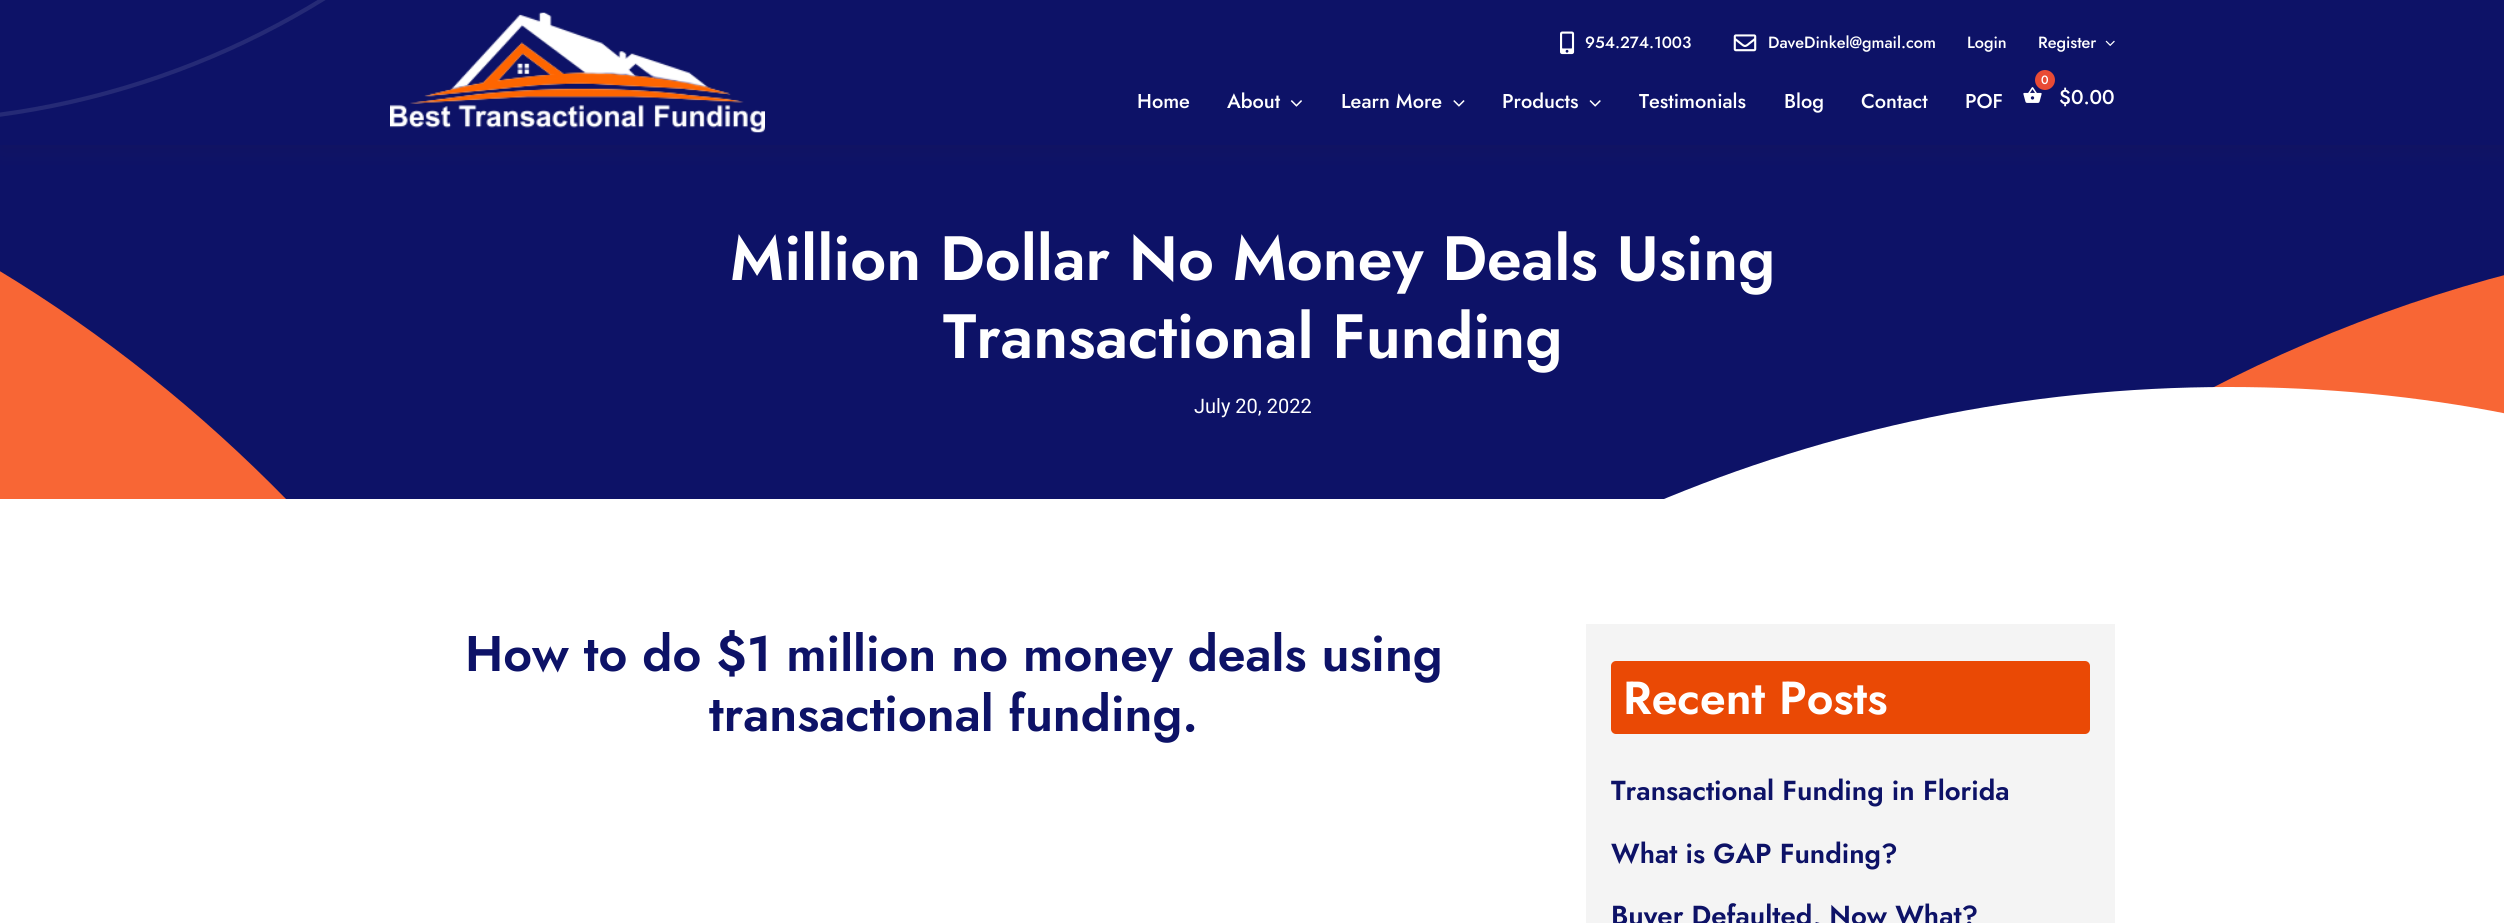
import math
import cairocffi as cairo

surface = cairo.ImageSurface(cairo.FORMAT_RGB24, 2504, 923)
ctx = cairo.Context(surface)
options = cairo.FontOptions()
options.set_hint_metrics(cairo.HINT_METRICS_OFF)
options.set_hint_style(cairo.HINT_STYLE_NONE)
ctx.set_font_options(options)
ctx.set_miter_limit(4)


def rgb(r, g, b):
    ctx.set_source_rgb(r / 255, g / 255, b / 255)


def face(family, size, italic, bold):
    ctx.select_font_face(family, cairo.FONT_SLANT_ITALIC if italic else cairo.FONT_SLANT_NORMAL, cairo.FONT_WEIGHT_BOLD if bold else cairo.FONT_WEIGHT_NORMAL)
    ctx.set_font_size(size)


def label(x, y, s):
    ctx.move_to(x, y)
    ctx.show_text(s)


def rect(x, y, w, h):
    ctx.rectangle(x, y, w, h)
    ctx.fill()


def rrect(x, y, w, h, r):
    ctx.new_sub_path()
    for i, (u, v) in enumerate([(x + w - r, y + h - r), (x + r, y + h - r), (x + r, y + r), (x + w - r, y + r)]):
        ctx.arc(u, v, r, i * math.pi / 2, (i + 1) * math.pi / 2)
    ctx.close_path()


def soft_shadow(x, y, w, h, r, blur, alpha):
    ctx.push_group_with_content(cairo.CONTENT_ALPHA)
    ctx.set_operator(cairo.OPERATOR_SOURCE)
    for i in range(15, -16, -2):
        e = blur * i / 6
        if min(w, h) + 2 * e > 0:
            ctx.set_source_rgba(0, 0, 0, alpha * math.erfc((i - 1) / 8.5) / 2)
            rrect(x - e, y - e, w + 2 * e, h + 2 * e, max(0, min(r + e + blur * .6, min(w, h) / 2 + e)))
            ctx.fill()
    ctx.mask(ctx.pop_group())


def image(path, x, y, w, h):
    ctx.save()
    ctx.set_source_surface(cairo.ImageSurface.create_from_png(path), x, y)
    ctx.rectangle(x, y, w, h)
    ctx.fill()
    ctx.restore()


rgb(255, 255, 255)
ctx.paint()
rgb(13, 18, 103)
rect(0, 145, 2504, 354)
rgb(91, 45, 0)
soft_shadow(0, 6, 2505, 145, 0, 12.5, 0.06)
rgb(13, 18, 103)
rect(0, 0, 2504, 145)
ctx.new_path()
ctx.move_to(-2.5, 115)
ctx.curve_to(197.5, 88.5, 375, -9, 504.5, -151.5)
rgb(37, 42, 118)
ctx.set_line_width(4.2)
ctx.stroke()
image('image0.png', 390, 12, 375, 121)
image('image1.png', 1560, 31, 15, 24)
face('Jost Medium', 16.25, 0, 0)
rgb(255, 255, 255)
label(1585, 48, '954.274.1003')
image('image2.png', 1733, 34, 24, 18)
label(1768, 48, 'DaveDinkel@gmail.com')
label(1967, 48, 'Login')
label(2038, 48, 'Register')
image('image3.png', 2105, 40, 10, 6)
face('Jost Medium', 20, 0, 0)
label(1137, 108, 'Home')
label(1227, 108, 'About')
image('image4.png', 1290, 100, 12, 7)
label(1341, 108, 'Learn More')
image('image5.png', 1453, 100, 12, 7)
label(1502, 108, 'Products')
image('image6.png', 1589, 100, 12, 7)
label(1639, 108, 'Testimonials')
label(1784, 108, 'Blog')
label(1861, 108, 'Contact')
label(1965, 108, 'POF')
image('image7.png', 2023, 87, 19, 16)
rgb(233, 75, 53)
ctx.arc(2045, 80, 10, 0, 2 * math.pi)
ctx.fill()
face('Jost Medium', 12, 0, 0)
rgb(255, 255, 255)
label(2041, 84, '0')
face('Jost Medium', 20, 0, 0)
label(2059, 104, '$0.00')
rgb(248, 102, 53)
ctx.new_path()
ctx.move_to(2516, 444)
ctx.line_to(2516, 272)
ctx.curve_to(2372, 309, 2236, 368, 2113, 444)
ctx.close_path()
ctx.fill()
ctx.save()
ctx.rectangle(0, 145, 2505, 354)
ctx.clip()
ctx.new_path()
ctx.move_to(-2, 500)
ctx.line_to(-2, 270)
ctx.curve_to(104, 334, 201, 412, 287, 500)
ctx.close_path()
ctx.fill()
rgb(255, 255, 255)
ctx.new_path()
ctx.move_to(2229, 387)
ctx.curve_to(2024, 387, 1829, 429, 1652, 504)
ctx.line_to(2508, 504)
ctx.line_to(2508, 414)
ctx.curve_to(2418, 396, 2324, 387, 2229, 387)
ctx.close_path()
ctx.fill()
ctx.restore()
face('Jost SemiBold', 62.5, 0, 0)
rgb(255, 255, 255)
label(730, 280, 'Million Dollar No Money Deals Using')
label(943, 358, 'Transactional Funding')
face('Roboto', 20, 0, 0)
label(1194, 413, 'July 20, 2022')
face('Jost SemiBold', 50, 0, 0)
rgb(13, 18, 103)
label(465, 671, 'How to do $1 million no money deals using')
label(709, 731, 'transactional funding.')
rgb(244, 244, 244)
rect(1586, 624, 529, 299)
rgb(234, 73, 5)
rrect(1611, 661, 479, 73, 5)
ctx.fill()
face('Jost SemiBold', 46.25, 0, 0)
rgb(255, 255, 255)
label(1623, 714, 'Recent Posts')
face('Jost SemiBold', 27.5, 0, 0)
rgb(13, 18, 103)
label(1611, 800, 'Transactional Funding in Florida')
label(1611, 863, 'What is GAP Funding?')
label(1611, 925, 'Buyer Defaulted, Now What?')
surface.write_to_png('render.png')
